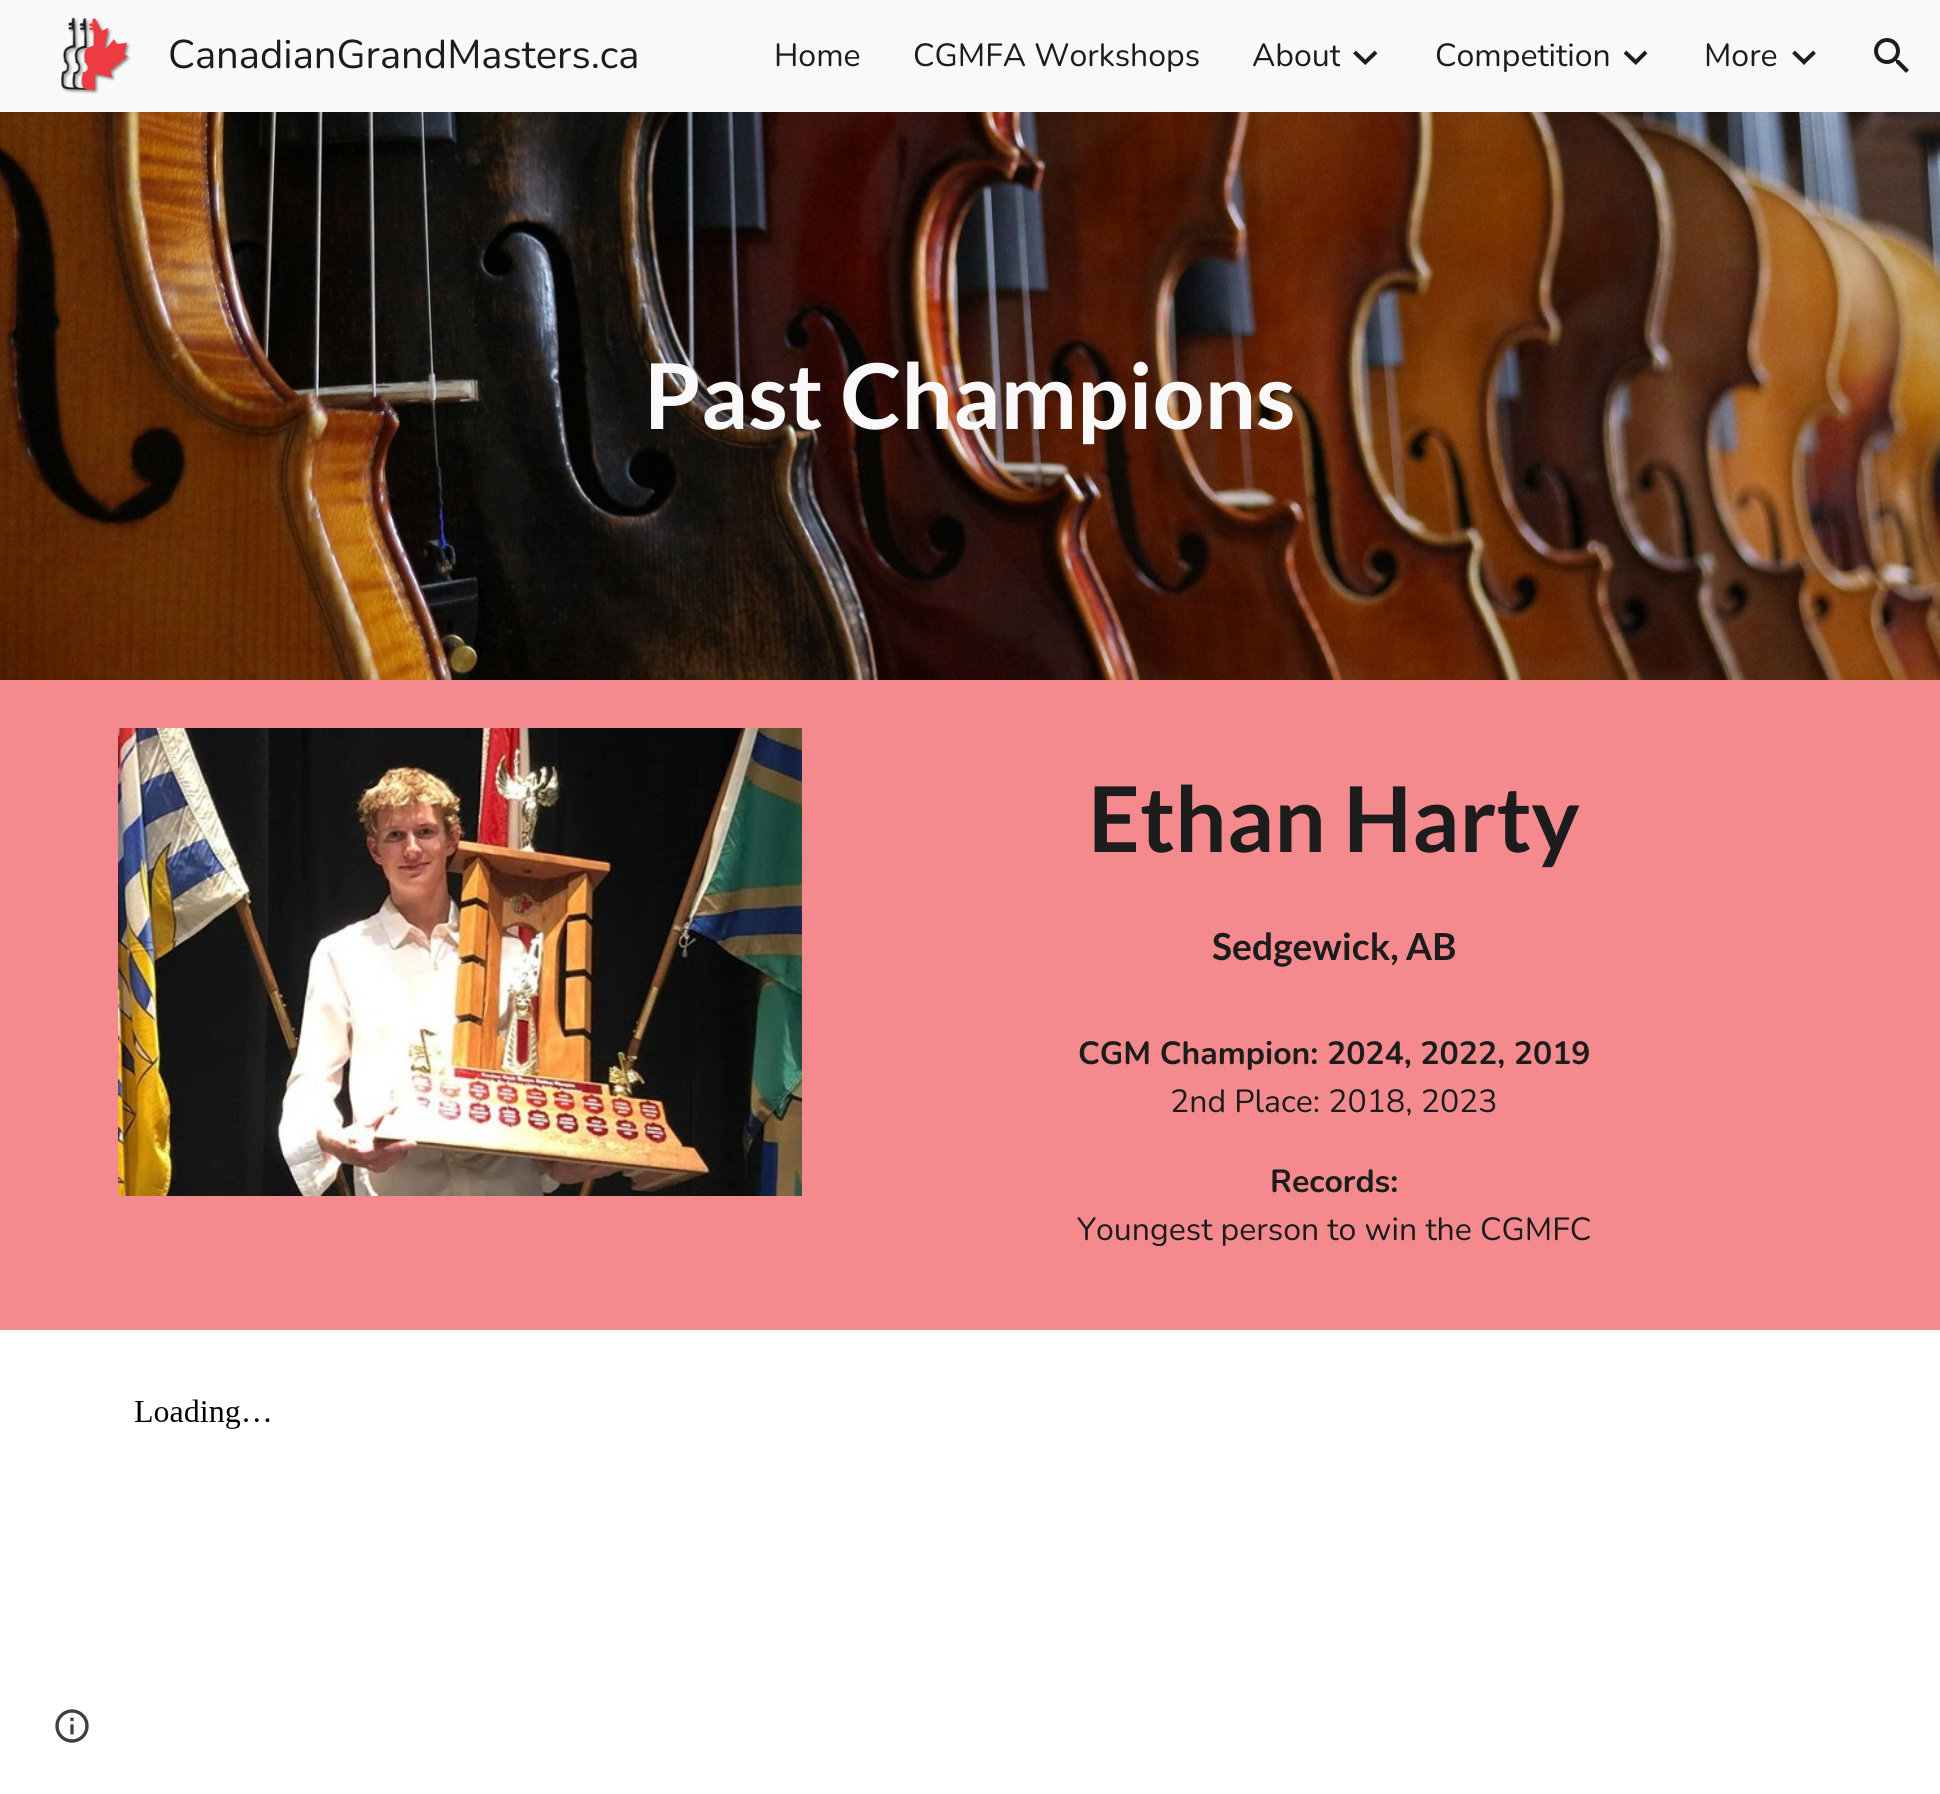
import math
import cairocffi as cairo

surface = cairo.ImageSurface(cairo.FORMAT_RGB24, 1940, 1794)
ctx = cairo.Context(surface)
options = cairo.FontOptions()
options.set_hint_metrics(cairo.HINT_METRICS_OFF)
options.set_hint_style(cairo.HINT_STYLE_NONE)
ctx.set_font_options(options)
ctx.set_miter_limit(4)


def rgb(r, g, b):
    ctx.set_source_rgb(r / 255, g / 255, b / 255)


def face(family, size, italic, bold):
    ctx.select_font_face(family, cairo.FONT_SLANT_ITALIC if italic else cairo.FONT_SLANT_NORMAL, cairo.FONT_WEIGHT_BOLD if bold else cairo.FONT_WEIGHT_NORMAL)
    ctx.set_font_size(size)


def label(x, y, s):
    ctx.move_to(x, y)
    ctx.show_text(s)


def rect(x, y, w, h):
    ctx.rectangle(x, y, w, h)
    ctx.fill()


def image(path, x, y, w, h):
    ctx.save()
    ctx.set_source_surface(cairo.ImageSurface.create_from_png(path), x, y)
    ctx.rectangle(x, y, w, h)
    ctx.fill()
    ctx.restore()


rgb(255, 255, 255)
ctx.paint()
rgb(249, 249, 249)
rect(0, 0, 1940, 112)
image('image0.png', 61, 17, 70, 77)
face('Nunito', 40, 0, 0)
rgb(28, 28, 28)
label(168, 68, 'CanadianGrandMasters.ca')
face('Nunito', 32, 0, 0)
label(774, 66, 'Home')
label(913, 66, 'CGMFA Workshops')
ctx.save()
ctx.rectangle(1252, 28, 88, 56)
ctx.clip()
label(1252, 66, 'About')
ctx.restore()
ctx.new_path()
ctx.move_to(1354.5, 52)
ctx.line_to(1366.5, 63.5)
ctx.move_to(1364, 63.5)
ctx.line_to(1376, 52)
ctx.set_line_width(4)
ctx.stroke()
label(1435, 66, 'Competition')
ctx.new_path()
ctx.move_to(1625, 52)
ctx.line_to(1637, 63.5)
ctx.move_to(1634.5, 63.5)
ctx.line_to(1646, 52)
ctx.stroke()
label(1704, 66, 'More')
ctx.new_path()
ctx.move_to(1793.5, 52)
ctx.line_to(1805.5, 63.5)
ctx.move_to(1802.5, 63.5)
ctx.line_to(1814.5, 52)
ctx.stroke()
image('image1.png', 1874, 38, 35, 35)
image('image2.png', 0, 112, 1940, 568)
face('Lato', 90.75, 0, 1)
rgb(249, 249, 249)
label(644, 429, 'Past Champions')
rgb(245, 138, 142)
rect(0, 680, 1940, 650)
image('image3.png', 118, 728, 684, 468)
rgb(28, 28, 28)
label(1088, 852, 'Ethan Harty')
face('Lato', 37.25, 0, 1)
label(1212, 960, 'Sedgewick, AB')
face('Nunito', 32, 0, 1)
label(1078, 1064, 'CGM Champion: 2024, 2022, 2019')
face('Nunito', 32, 0, 0)
label(1170, 1112, '2nd Place: 2018, 2023')
face('Nunito', 32, 0, 1)
label(1270, 1192, 'Records:')
face('Nunito', 32, 0, 0)
label(1077, 1240, 'Youngest person to win the CGMFC')
image('image4.png', 134, 1399, 136, 30)
image('image5.png', 55, 1709, 34, 34)
surface.write_to_png('render.png')
